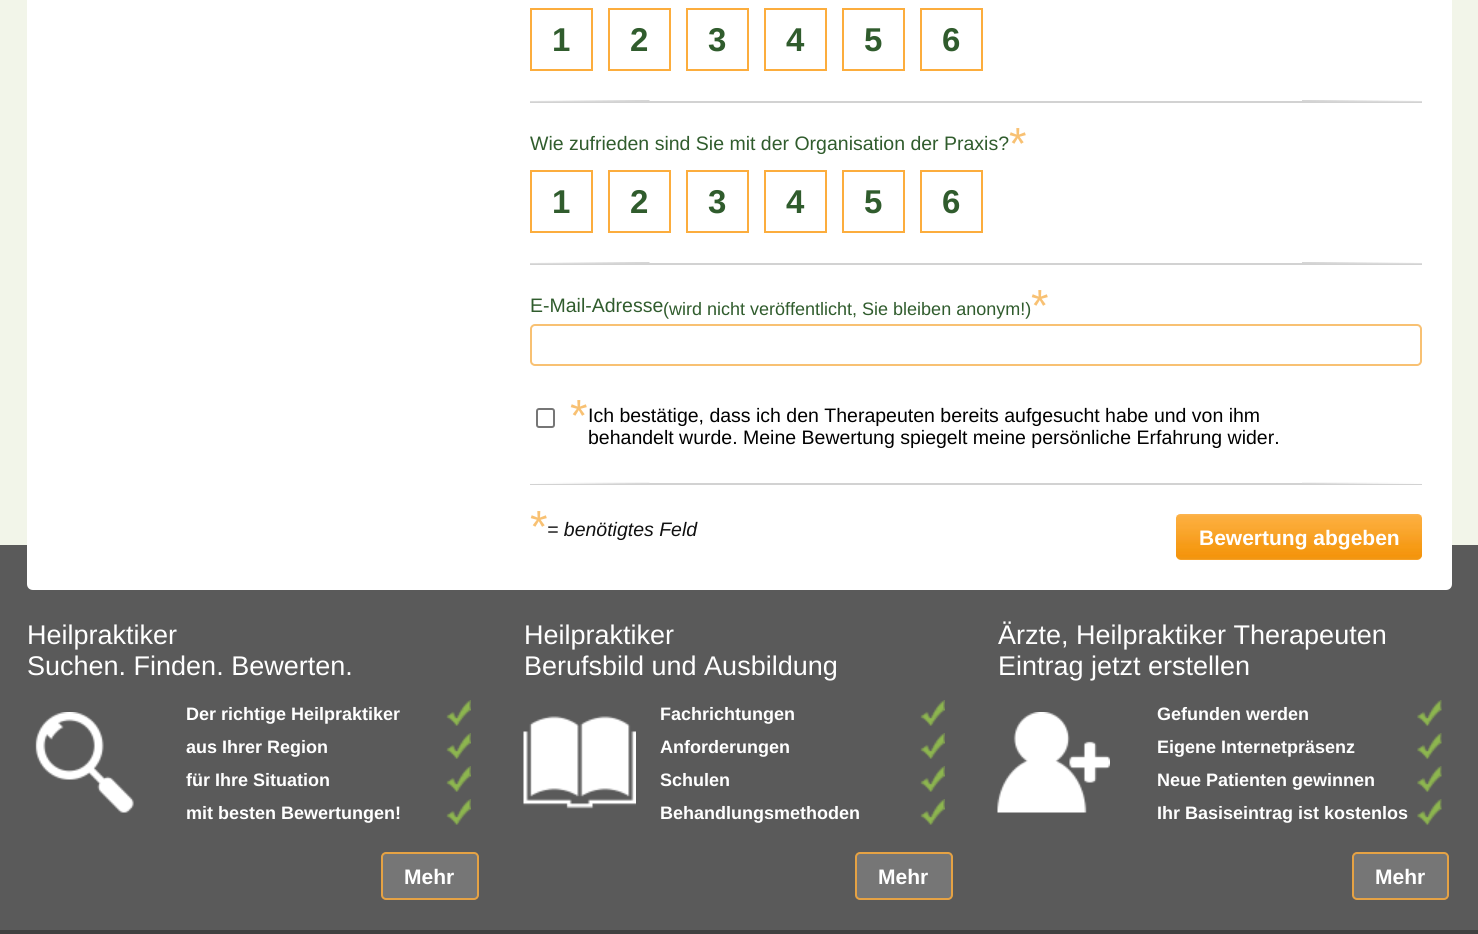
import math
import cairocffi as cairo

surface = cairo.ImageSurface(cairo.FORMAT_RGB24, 1478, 934)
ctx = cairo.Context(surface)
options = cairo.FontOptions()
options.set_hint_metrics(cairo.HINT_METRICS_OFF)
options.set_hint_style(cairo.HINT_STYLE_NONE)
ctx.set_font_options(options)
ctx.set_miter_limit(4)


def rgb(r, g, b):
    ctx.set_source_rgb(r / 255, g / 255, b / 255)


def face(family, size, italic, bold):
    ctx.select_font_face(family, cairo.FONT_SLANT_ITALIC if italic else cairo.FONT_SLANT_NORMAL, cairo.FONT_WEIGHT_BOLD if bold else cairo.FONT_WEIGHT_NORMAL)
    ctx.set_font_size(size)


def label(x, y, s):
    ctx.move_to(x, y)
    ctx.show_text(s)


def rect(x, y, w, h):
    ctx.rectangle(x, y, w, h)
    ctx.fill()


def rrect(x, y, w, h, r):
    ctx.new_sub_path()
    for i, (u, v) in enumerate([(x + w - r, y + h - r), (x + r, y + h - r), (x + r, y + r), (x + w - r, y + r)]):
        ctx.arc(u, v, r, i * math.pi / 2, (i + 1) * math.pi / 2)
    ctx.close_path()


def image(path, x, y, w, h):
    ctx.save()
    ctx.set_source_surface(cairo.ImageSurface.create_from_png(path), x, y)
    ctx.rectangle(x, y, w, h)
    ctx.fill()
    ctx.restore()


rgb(242, 245, 233)
ctx.paint()
rgb(90, 90, 90)
rect(0, 545, 1478, 385)
rgb(255, 255, 255)
ctx.new_path()
ctx.move_to(27, -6)
ctx.line_to(1452, -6)
ctx.line_to(1452, 584)
ctx.curve_to(1452, 587.5, 1449.5, 590, 1446, 590)
ctx.line_to(33, 590)
ctx.curve_to(29.5, 590, 27, 587.5, 27, 584)
ctx.close_path()
ctx.fill()
ctx.rectangle(531, 9, 61, 61)
rgb(252, 173, 61)
ctx.stroke()
face('Liberation Sans', 33, 0, 1)
rgb(48, 92, 45)
label(552, 51, '1')
ctx.rectangle(609, 9, 61, 61)
rgb(252, 173, 61)
ctx.stroke()
rgb(48, 92, 45)
label(630, 51, '2')
ctx.rectangle(687, 9, 61, 61)
rgb(252, 173, 61)
ctx.stroke()
rgb(48, 92, 45)
label(708, 51, '3')
ctx.rectangle(765, 9, 61, 61)
rgb(252, 173, 61)
ctx.stroke()
rgb(48, 92, 45)
label(786, 51, '4')
ctx.rectangle(843, 9, 61, 61)
rgb(252, 173, 61)
ctx.stroke()
rgb(48, 92, 45)
label(864, 51, '5')
ctx.rectangle(921, 9, 61, 61)
rgb(252, 173, 61)
ctx.stroke()
rgb(48, 92, 45)
label(942, 51, '6')
rgb(210, 210, 210)
rect(530, 101, 892, 2)
image('image0.png', 530, 100, 120, 2)
image('image1.png', 1302, 100, 120, 2)
face('Liberation Sans', 19.5, 0, 0)
rgb(48, 92, 45)
label(530, 150, 'Wie zufrieden sind Sie mit der Organisation der Praxis?')
face('Liberation Sans', 45, 0, 0)
rgb(248, 193, 115)
label(1009, 159, '*')
ctx.rectangle(531, 171, 61, 61)
rgb(252, 173, 61)
ctx.stroke()
face('Liberation Sans', 33, 0, 1)
rgb(48, 92, 45)
label(552, 213, '1')
ctx.rectangle(609, 171, 61, 61)
rgb(252, 173, 61)
ctx.stroke()
rgb(48, 92, 45)
label(630, 213, '2')
ctx.rectangle(687, 171, 61, 61)
rgb(252, 173, 61)
ctx.stroke()
rgb(48, 92, 45)
label(708, 213, '3')
ctx.rectangle(765, 171, 61, 61)
rgb(252, 173, 61)
ctx.stroke()
rgb(48, 92, 45)
label(786, 213, '4')
ctx.rectangle(843, 171, 61, 61)
rgb(252, 173, 61)
ctx.stroke()
rgb(48, 92, 45)
label(864, 213, '5')
ctx.rectangle(921, 171, 61, 61)
rgb(252, 173, 61)
ctx.stroke()
rgb(48, 92, 45)
label(942, 213, '6')
rgb(210, 210, 210)
rect(530, 263, 892, 2)
image('image0.png', 530, 262, 120, 2)
image('image1.png', 1302, 262, 120, 2)
face('Liberation Sans', 19.5, 0, 0)
rgb(48, 92, 45)
label(530, 312, 'E-Mail-Adresse')
face('Liberation Sans', 18, 0, 0)
label(663, 315, '(wird nicht veröffentlicht, Sie bleiben anonym!)')
face('Liberation Sans', 45, 0, 0)
rgb(248, 193, 115)
label(1031, 321, '*')
rrect(531, 325, 890, 40, 4)
ctx.stroke()
rrect(537, 409, 17, 18, 2)
rgb(118, 118, 118)
ctx.stroke()
rgb(248, 193, 115)
label(570, 431, '*')
face('Liberation Sans', 19.5, 0, 0)
rgb(0, 0, 0)
label(588, 422, 'Ich bestätige, dass ich den Therapeuten bereits aufgesucht habe und von ihm')
label(588, 444, 'behandelt wurde. Meine Bewertung spiegelt meine persönliche Erfahrung wider.')
rgb(210, 210, 210)
rect(530, 483, 892, 2)
image('image2.png', 530, 482, 120, 2)
image('image3.png', 1302, 482, 120, 2)
face('Liberation Sans', 45, 0, 0)
rgb(248, 193, 115)
label(530, 542, '*')
face('Liberation Sans', 19.5, 1, 0)
rgb(17, 17, 17)
label(547, 536, '= benötigtes Feld')
rgb(249, 161, 37)
rrect(1176, 515, 246, 45, 5)
ctx.fill()
image('image4.png', 1176, 514, 246, 45)
face('Liberation Sans', 21, 0, 1)
rgb(255, 255, 255)
label(1199, 545, 'Bewertung abgeben')
face('Liberation Sans', 27, 0, 0)
label(27, 644, 'Heilpraktiker')
label(27, 675, 'Suchen. Finden. Bewerten.')
image('image5.png', 35, 712, 99, 101)
image('image6.png', 446, 700, 25, 26)
face('Liberation Sans', 18, 0, 1)
label(186, 720, 'Der richtige Heilpraktiker')
image('image6.png', 446, 733, 25, 26)
label(186, 753, 'aus Ihrer Region')
image('image6.png', 446, 766, 25, 26)
label(186, 786, 'für Ihre Situation')
image('image6.png', 446, 799, 25, 26)
label(186, 819, 'mit besten Bewertungen!')
rgb(118, 118, 118)
rrect(382, 853, 96, 46, 4)
ctx.fill_preserve()
rgb(229, 162, 68)
ctx.stroke()
face('Liberation Sans', 21, 0, 1)
rgb(255, 255, 255)
label(404, 884, 'Mehr')
face('Liberation Sans', 27, 0, 0)
label(524, 644, 'Heilpraktiker')
label(524, 675, 'Berufsbild und Ausbildung')
image('image7.png', 523, 716, 113, 93)
image('image6.png', 920, 700, 25, 26)
face('Liberation Sans', 18, 0, 1)
label(660, 720, 'Fachrichtungen')
image('image6.png', 920, 733, 25, 26)
label(660, 753, 'Anforderungen')
image('image6.png', 920, 766, 25, 26)
label(660, 786, 'Schulen')
image('image6.png', 920, 799, 25, 26)
label(660, 819, 'Behandlungsmethoden')
rgb(118, 118, 118)
rrect(856, 853, 96, 46, 4)
ctx.fill_preserve()
rgb(229, 162, 68)
ctx.stroke()
face('Liberation Sans', 21, 0, 1)
rgb(255, 255, 255)
label(878, 884, 'Mehr')
face('Liberation Sans', 27, 0, 0)
label(998, 644, 'Ärzte, Heilpraktiker Therapeuten')
label(998, 675, 'Eintrag jetzt erstellen')
image('image8.png', 997, 712, 113, 101)
image('image9.png', 1417, 700, 25, 27)
face('Liberation Sans', 18, 0, 1)
label(1157, 720, 'Gefunden werden')
image('image9.png', 1417, 733, 25, 27)
label(1157, 753, 'Eigene Internetpräsenz')
image('image9.png', 1417, 766, 25, 27)
label(1157, 786, 'Neue Patienten gewinnen')
image('image9.png', 1417, 799, 25, 27)
label(1157, 819, 'Ihr Basiseintrag ist kostenlos')
rgb(118, 118, 118)
rrect(1353, 853, 95, 46, 4)
ctx.fill_preserve()
rgb(229, 162, 68)
ctx.stroke()
face('Liberation Sans', 21, 0, 1)
rgb(255, 255, 255)
label(1375, 884, 'Mehr')
rgb(64, 64, 64)
rect(0, 930, 1478, 4)
surface.write_to_png('render.png')
